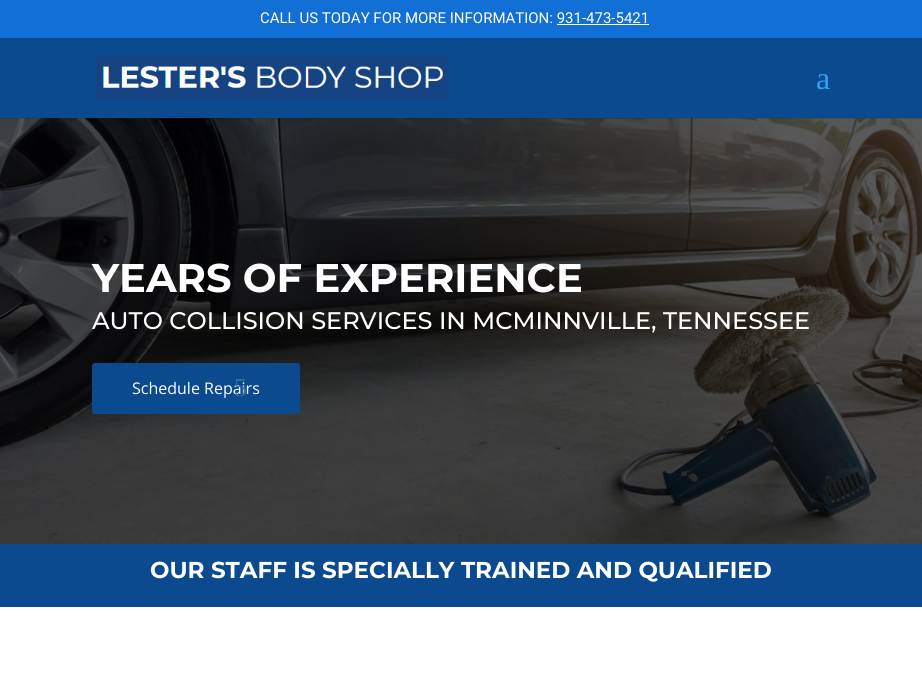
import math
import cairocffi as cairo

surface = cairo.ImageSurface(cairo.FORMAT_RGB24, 922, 686)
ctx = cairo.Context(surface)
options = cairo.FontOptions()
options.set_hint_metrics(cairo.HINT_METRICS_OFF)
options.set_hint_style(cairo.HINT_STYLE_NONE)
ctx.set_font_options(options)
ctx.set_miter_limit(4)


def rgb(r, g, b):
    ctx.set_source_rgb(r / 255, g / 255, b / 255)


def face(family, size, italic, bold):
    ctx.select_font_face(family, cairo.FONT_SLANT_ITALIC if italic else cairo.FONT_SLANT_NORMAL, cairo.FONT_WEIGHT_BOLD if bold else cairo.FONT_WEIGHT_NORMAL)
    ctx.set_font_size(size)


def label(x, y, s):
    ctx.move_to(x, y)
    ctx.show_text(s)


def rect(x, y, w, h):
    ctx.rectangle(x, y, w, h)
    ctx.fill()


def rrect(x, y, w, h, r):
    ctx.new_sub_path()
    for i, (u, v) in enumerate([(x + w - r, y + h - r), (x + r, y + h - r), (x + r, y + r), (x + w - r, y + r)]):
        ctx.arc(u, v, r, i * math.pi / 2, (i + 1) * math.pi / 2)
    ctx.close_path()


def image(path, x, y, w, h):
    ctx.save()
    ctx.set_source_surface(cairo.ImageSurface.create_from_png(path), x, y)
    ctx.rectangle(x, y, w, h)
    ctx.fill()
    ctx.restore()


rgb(255, 255, 255)
ctx.paint()
rgb(17, 111, 213)
rect(0, 0, 922, 38)
face('Roboto', 15, 0, 0)
rgb(255, 255, 255)
label(260, 23, 'CALL US TODAY FOR MORE INFORMATION: 931-473-5421')
rect(557, 24, 92, 1)
image('image1.png', 0, 118, 922, 426)
ctx.set_source_rgba(0, 0, 0, 0.1)
rect(0, 118, 922, 1)
rgb(11, 74, 142)
rect(0, 38, 922, 80)
image('image0.png', 96, 56, 353, 43)
face('Liberation Serif', 32, 0, 0)
rgb(46, 163, 242)
label(816, 89, 'a')
face('Montserrat', 40, 0, 1)
rgb(255, 255, 255)
label(92, 292, 'YEARS OF EXPERIENCE')
face('Montserrat Medium', 24, 0, 0)
label(92, 329, 'AUTO COLLISION SERVICES IN MCMINNVILLE, TENNESSEE')
rgb(11, 74, 142)
rrect(92, 363, 208, 51, 3)
ctx.fill()
face('Open Sans', 16, 0, 0)
rgb(255, 255, 255)
label(132, 394, 'Schedule Repairs')
face('Liberation Serif', 26, 0, 0)
rgb(55, 107, 162)
label(234, 396, '5')
rgb(11, 74, 142)
rect(0, 544, 922, 63)
face('Montserrat', 23, 0, 1)
rgb(255, 255, 255)
label(150, 578, 'OUR STAFF IS SPECIALLY TRAINED AND QUALIFIED')
surface.write_to_png('render.png')
